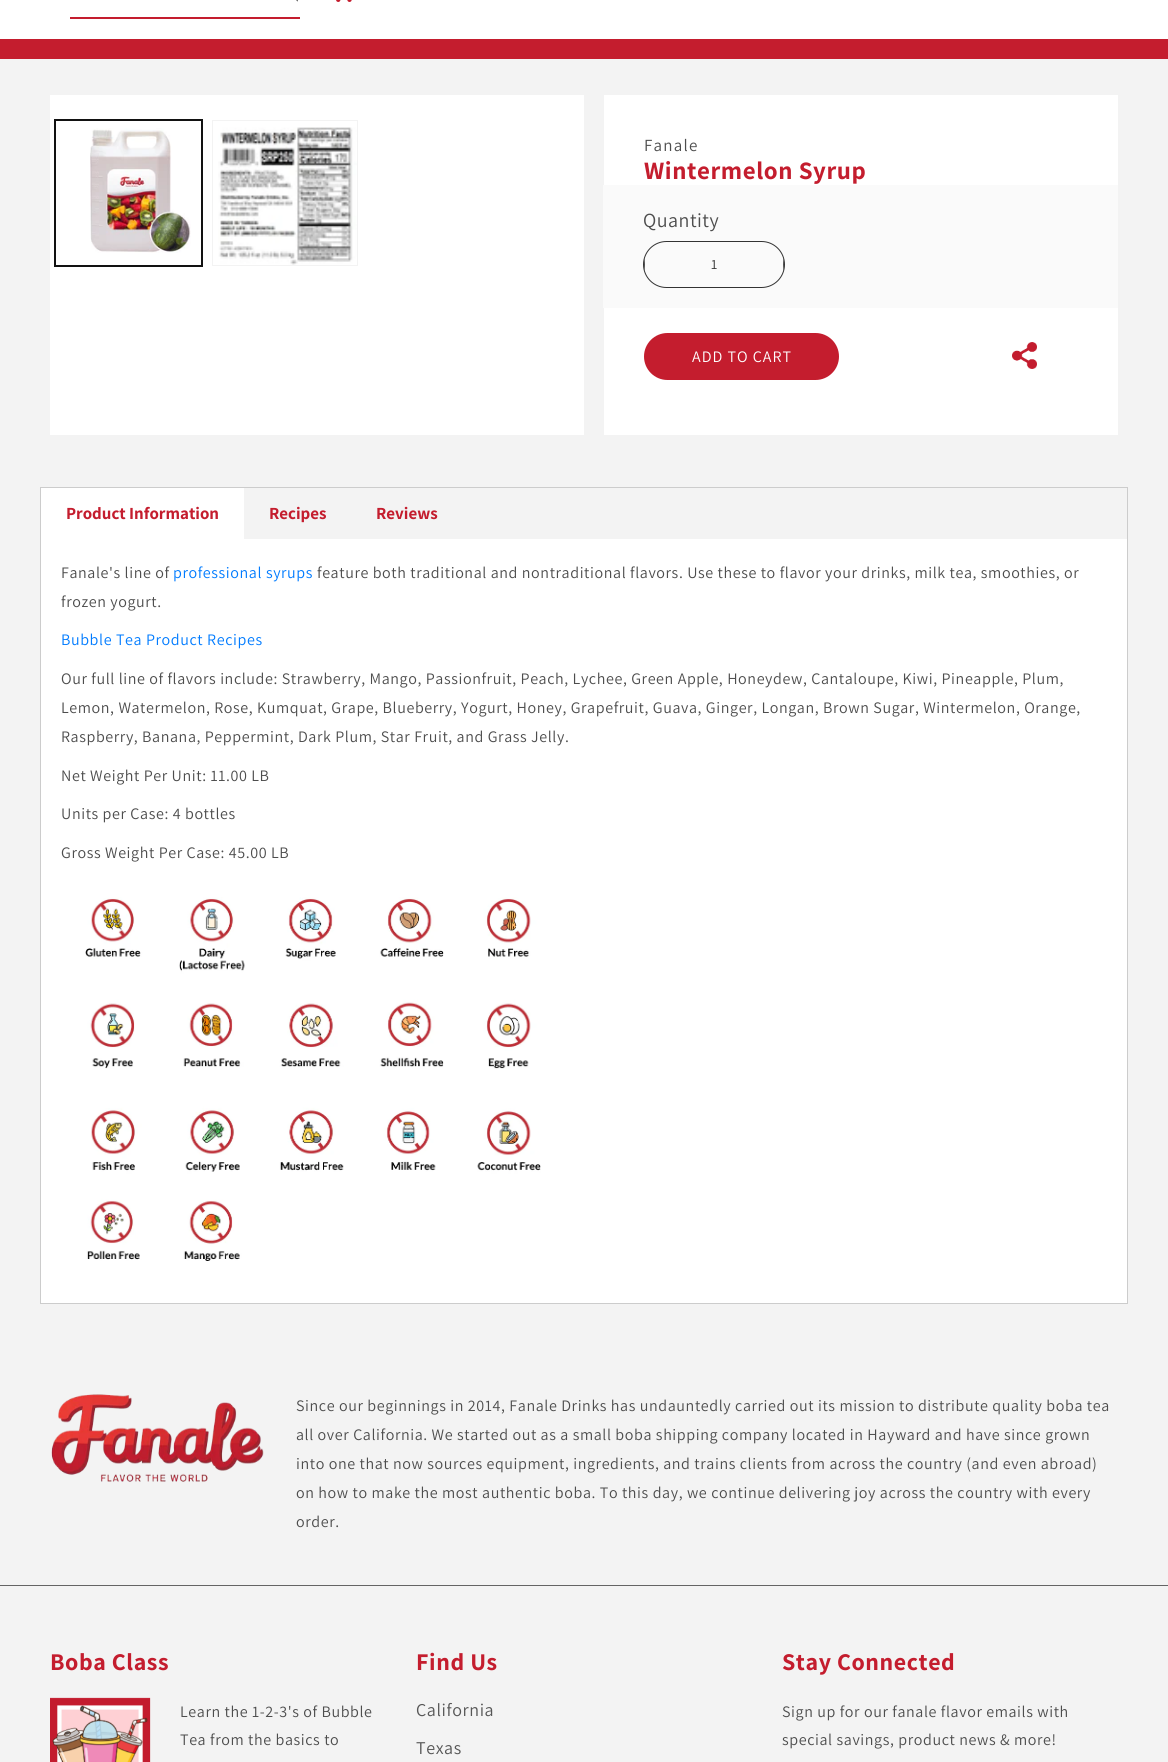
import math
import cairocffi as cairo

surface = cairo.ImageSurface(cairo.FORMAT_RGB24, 1168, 1762)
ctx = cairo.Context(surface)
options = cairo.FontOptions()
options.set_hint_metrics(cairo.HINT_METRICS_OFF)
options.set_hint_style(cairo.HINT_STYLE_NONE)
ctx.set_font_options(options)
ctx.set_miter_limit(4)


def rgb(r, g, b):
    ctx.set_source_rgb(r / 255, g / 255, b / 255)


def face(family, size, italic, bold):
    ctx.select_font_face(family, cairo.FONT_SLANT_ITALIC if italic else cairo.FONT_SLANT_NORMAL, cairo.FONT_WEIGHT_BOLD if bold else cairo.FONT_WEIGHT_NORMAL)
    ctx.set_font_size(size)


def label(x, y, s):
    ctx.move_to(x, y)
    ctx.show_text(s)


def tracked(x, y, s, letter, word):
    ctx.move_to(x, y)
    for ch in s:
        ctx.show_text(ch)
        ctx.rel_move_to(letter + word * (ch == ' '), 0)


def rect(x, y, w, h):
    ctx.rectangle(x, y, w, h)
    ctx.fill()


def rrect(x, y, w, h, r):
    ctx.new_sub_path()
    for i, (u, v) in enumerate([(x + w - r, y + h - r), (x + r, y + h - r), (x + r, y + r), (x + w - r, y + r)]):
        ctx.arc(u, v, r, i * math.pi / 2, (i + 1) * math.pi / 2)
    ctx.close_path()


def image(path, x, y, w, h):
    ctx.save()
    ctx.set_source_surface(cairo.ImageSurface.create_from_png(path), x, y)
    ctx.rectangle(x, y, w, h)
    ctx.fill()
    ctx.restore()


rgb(255, 255, 255)
ctx.paint()
rgb(196, 29, 46)
rect(70, 17, 230, 2)
image('image0.png', 296, 0, 2, 2)
image('image1.png', 336, 0, 16, 2)
rect(0, 39, 1168, 20)
rgb(243, 243, 243)
rect(0, 59, 1168, 1297)
rgb(255, 255, 255)
rect(50, 95, 534, 340)
ctx.rectangle(54.5, 119.5, 148, 147)
rgb(18, 18, 18)
ctx.set_line_width(1)
ctx.stroke()
ctx.rectangle(55.5, 120.5, 146, 145)
ctx.stroke()
image('image2.png', 90, 128, 101, 125)
ctx.rectangle(212.5, 120.5, 145, 145)
rgb(243, 243, 243)
ctx.stroke()
image('image3.png', 218, 127, 139, 138)
rgb(255, 255, 255)
rect(604, 95, 514, 340)
face('Assistant', 17, 0, 0)
rgb(77, 77, 77)
tracked(644, 151, 'Fanale', 1.25, 0)
face('Assistant', 25, 0, 1)
rgb(196, 29, 46)
tracked(644, 179, 'Wintermelon Syrup', 0.6, 0)
rgb(250, 250, 250)
rect(603, 185, 515, 123)
face('Assistant', 20, 0, 0)
rgb(77, 77, 77)
tracked(643, 227, 'Quantity', 0.5, 0)
rrect(643.5, 241.5, 141, 46, 23)
rgb(51, 51, 51)
ctx.stroke()
ctx.save()
rrect(644, 242, 140, 45, 22.5)
ctx.clip()
ctx.set_source_rgba(0.2, 0.2, 0.2, 0.85)
rect(783, 258, 1, 13)
rect(644, 258, 1, 13)
ctx.restore()
face('Assistant', 14, 0, 0)
rgb(53, 53, 53)
label(711, 269, '1')
rgb(196, 29, 46)
rrect(644, 333, 195, 47, 23.5)
ctx.fill()
face('Assistant', 16, 0, 0)
rgb(255, 255, 255)
tracked(692, 362, 'ADD TO CART', 1, 0)
image('image4.png', 1012, 342, 25, 27)
rgb(204, 204, 204)
rect(40, 487, 1088, 1)
rect(1127, 487, 1, 52)
rect(40, 487, 1, 52)
rgb(255, 255, 255)
rect(41, 488, 203, 51)
face('Assistant', 17, 0, 1)
rgb(196, 29, 46)
label(66, 519, 'Product Information')
label(269, 519, 'Recipes')
label(376, 519, 'Reviews')
rgb(255, 255, 255)
rect(41, 539, 1086, 764)
rgb(204, 204, 204)
rect(1127, 539, 1, 765)
rect(40, 1303, 1088, 1)
rect(40, 539, 1, 765)
face('Assistant', 16, 0, 0)
rgb(77, 77, 77)
tracked(61, 578, 'Fanale\'s line of', 0.6, 0)
rgb(0, 123, 255)
tracked(173, 578, 'professional syrups', 0.6, 0)
rgb(77, 77, 77)
tracked(317, 578, 'feature both traditional and nontraditional flavors. Use these to flavor your drinks, milk tea, smoothies, or', 0.6, 0)
tracked(61, 607, 'frozen yogurt.', 0.6, 0)
rgb(0, 123, 255)
tracked(61, 645, 'Bubble Tea Product Recipes', 0.6, 0)
rgb(77, 77, 77)
tracked(61, 684, 'Our full line of flavors include: Strawberry, Mango, Passionfruit, Peach, Lychee, Green Apple, Honeydew, Cantaloupe, Kiwi, Pineapple, Plum,', 0.6, 0)
tracked(61, 713, 'Lemon, Watermelon, Rose, Kumquat, Grape, Blueberry, Yogurt, Honey, Grapefruit, Guava, Ginger, Longan, Brown Sugar, Wintermelon, Orange,', 0.6, 0)
tracked(61, 742, 'Raspberry, Banana, Peppermint, Dark Plum, Star Fruit, and Grass Jelly.', 0.6, 0)
tracked(61, 781, 'Net Weight Per Unit: 11.00 LB', 0.6, 0)
tracked(61, 819, 'Units per Case: 4 bottles', 0.6, 0)
tracked(61, 858, 'Gross Weight Per Case: 45.00 LB', 0.6, 0)
image('image5.png', 85, 897, 456, 364)
rgb(243, 243, 243)
rect(0, 1356, 1168, 406)
image('image6.png', 51, 1394, 213, 88)
rgb(77, 77, 77)
tracked(296, 1411, 'Since our beginnings in 2014, Fanale Drinks has undauntedly carried out its mission to distribute quality boba tea', 0.6, 0)
tracked(296, 1440, 'all over California. We started out as a small boba shipping company located in Hayward and have since grown', 0.6, 0)
tracked(296, 1469, 'into one that now sources equipment, ingredients, and trains clients from across the country (and even abroad)', 0.6, 0)
tracked(296, 1498, 'on how to make the most authentic boba. To this day, we continue delivering joy across the country with every', 0.6, 0)
tracked(296, 1527, 'order.', 0.6, 0)
rgb(100, 100, 100)
rect(0, 1585, 1168, 1)
face('Assistant', 24, 0, 1)
rgb(196, 29, 46)
tracked(50, 1670, 'Boba Class', 0.6, 0)
image('image7.png', 50, 1697, 101, 65)
face('Assistant', 16, 0, 0)
rgb(77, 77, 77)
tracked(180, 1717, 'Learn the 1-2-3\'s of Bubble', 0.6, 0)
tracked(180, 1745, 'Tea from the basics to', 0.6, 0)
face('Assistant', 24, 0, 1)
rgb(196, 29, 46)
tracked(416, 1670, 'Find Us', 0.6, 0)
face('Assistant', 18, 0, 0)
rgb(86, 86, 86)
tracked(416, 1716, 'California', 0.6, 0)
tracked(416, 1754, 'Texas', 0.6, 0)
face('Assistant', 24, 0, 1)
rgb(196, 29, 46)
tracked(782, 1670, 'Stay Connected', 0.6, 0)
face('Assistant', 16, 0, 0)
rgb(77, 77, 77)
tracked(782, 1717, 'Sign up for our fanale flavor emails with', 0.6, 0)
tracked(782, 1745, 'special savings, product news & more!', 0.6, 0)
surface.write_to_png('render.png')
